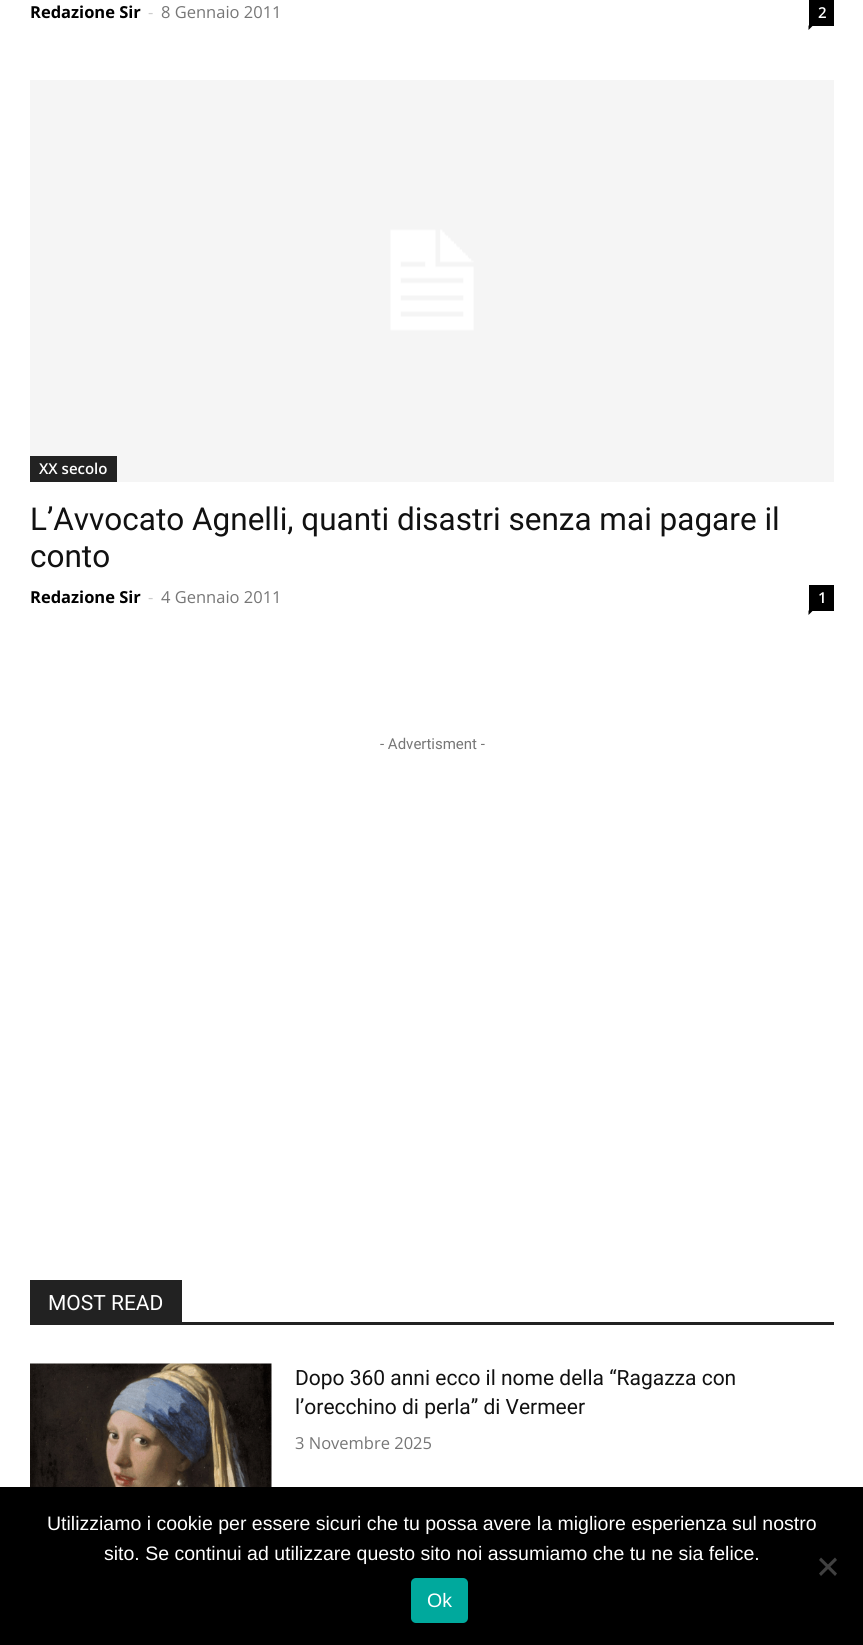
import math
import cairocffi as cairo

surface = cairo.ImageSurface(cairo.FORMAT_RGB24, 863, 1645)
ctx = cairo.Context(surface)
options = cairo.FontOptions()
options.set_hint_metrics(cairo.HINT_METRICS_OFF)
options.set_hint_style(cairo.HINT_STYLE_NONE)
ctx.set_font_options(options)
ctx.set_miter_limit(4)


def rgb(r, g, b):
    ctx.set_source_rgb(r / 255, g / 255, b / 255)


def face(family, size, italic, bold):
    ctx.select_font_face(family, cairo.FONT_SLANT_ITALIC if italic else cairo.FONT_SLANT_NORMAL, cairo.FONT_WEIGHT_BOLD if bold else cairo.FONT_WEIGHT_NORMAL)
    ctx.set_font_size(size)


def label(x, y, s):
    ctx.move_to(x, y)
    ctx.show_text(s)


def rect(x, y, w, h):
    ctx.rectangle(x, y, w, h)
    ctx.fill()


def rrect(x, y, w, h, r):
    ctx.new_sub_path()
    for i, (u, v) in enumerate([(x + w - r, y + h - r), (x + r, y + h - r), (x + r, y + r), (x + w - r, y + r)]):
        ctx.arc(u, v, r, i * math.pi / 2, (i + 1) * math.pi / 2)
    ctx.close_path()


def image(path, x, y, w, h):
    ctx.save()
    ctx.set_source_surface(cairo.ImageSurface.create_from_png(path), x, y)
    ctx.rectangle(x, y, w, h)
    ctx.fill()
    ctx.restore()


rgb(255, 255, 255)
ctx.paint()
face('Open Sans', 16.5, 0, 1)
rgb(0, 0, 0)
label(30, 18, 'Redazione Sir')
face('Open Sans', 16.5, 0, 0)
rgb(204, 204, 204)
label(148, 18, '-')
rgb(118, 118, 118)
label(161, 18, '8 Gennaio 2011')
rgb(0, 0, 0)
rect(809, 0, 25, 26)
face('Open Sans SemiBold', 15, 0, 0)
rgb(255, 255, 255)
label(818, 18, '2')
rgb(0, 0, 0)
ctx.new_path()
ctx.move_to(808.5, 25.5)
ctx.line_to(813, 25.5)
ctx.line_to(808.5, 30)
ctx.close_path()
ctx.fill()
image('image0.png', 30, 80, 804, 402)
rgb(34, 34, 34)
rect(30, 456, 87, 26)
rgb(255, 255, 255)
label(39, 474, 'XX secolo')
face('Roboto', 31.5, 0, 0)
rgb(17, 17, 17)
label(30, 530, 'L’Avvocato Agnelli, quanti disastri senza mai pagare il')
label(30, 567, 'conto')
face('Open Sans', 16.5, 0, 1)
rgb(0, 0, 0)
label(30, 603, 'Redazione Sir')
face('Open Sans', 16.5, 0, 0)
rgb(204, 204, 204)
label(148, 603, '-')
rgb(118, 118, 118)
label(161, 603, '4 Gennaio 2011')
rgb(0, 0, 0)
rect(809, 585, 25, 26)
face('Open Sans SemiBold', 15, 0, 0)
rgb(255, 255, 255)
label(818, 603, '1')
rgb(0, 0, 0)
ctx.new_path()
ctx.move_to(808.5, 610.5)
ctx.line_to(813, 610.5)
ctx.line_to(808.5, 615)
ctx.close_path()
ctx.fill()
face('Roboto', 15, 0, 0)
rgb(118, 118, 118)
label(380, 749, '- Advertisment -')
rgb(34, 34, 34)
rect(30, 1322, 804, 3)
rect(30, 1280, 152, 42)
face('Roboto', 21, 0, 0)
rgb(255, 255, 255)
label(48, 1310, 'MOST READ')
image('image1.png', 30, 1363, 242, 124)
rgb(17, 17, 17)
label(295, 1385, 'Dopo 360 anni ecco il nome della “Ragazza con')
label(295, 1414, 'l’orecchino di perla” di Vermeer')
face('Open Sans', 16.5, 0, 0)
rgb(118, 118, 118)
label(295, 1449, '3 Novembre 2025')
rgb(0, 0, 0)
rect(0, 1487, 863, 158)
face('Liberation Sans', 19.5, 0, 0)
rgb(255, 255, 255)
label(47, 1530, 'Utilizziamo i cookie per essere sicuri che tu possa avere la migliore esperienza sul nostro')
label(104, 1560, 'sito. Se continui ad utilizzare questo sito noi assumiamo che tu ne sia felice.')
rgb(64, 64, 64)
ctx.new_path()
ctx.move_to(835, 1557.5)
ctx.line_to(837, 1560)
ctx.line_to(821, 1576)
ctx.line_to(819, 1573.5)
ctx.close_path()
ctx.fill()
ctx.new_path()
ctx.move_to(819, 1560)
ctx.line_to(821, 1557.5)
ctx.line_to(837, 1573.5)
ctx.line_to(835, 1576)
ctx.close_path()
ctx.fill()
rgb(0, 169, 157)
rrect(411, 1578, 57, 45, 5)
ctx.fill()
rgb(255, 255, 255)
label(427, 1607, 'Ok')
surface.write_to_png('render.png')
